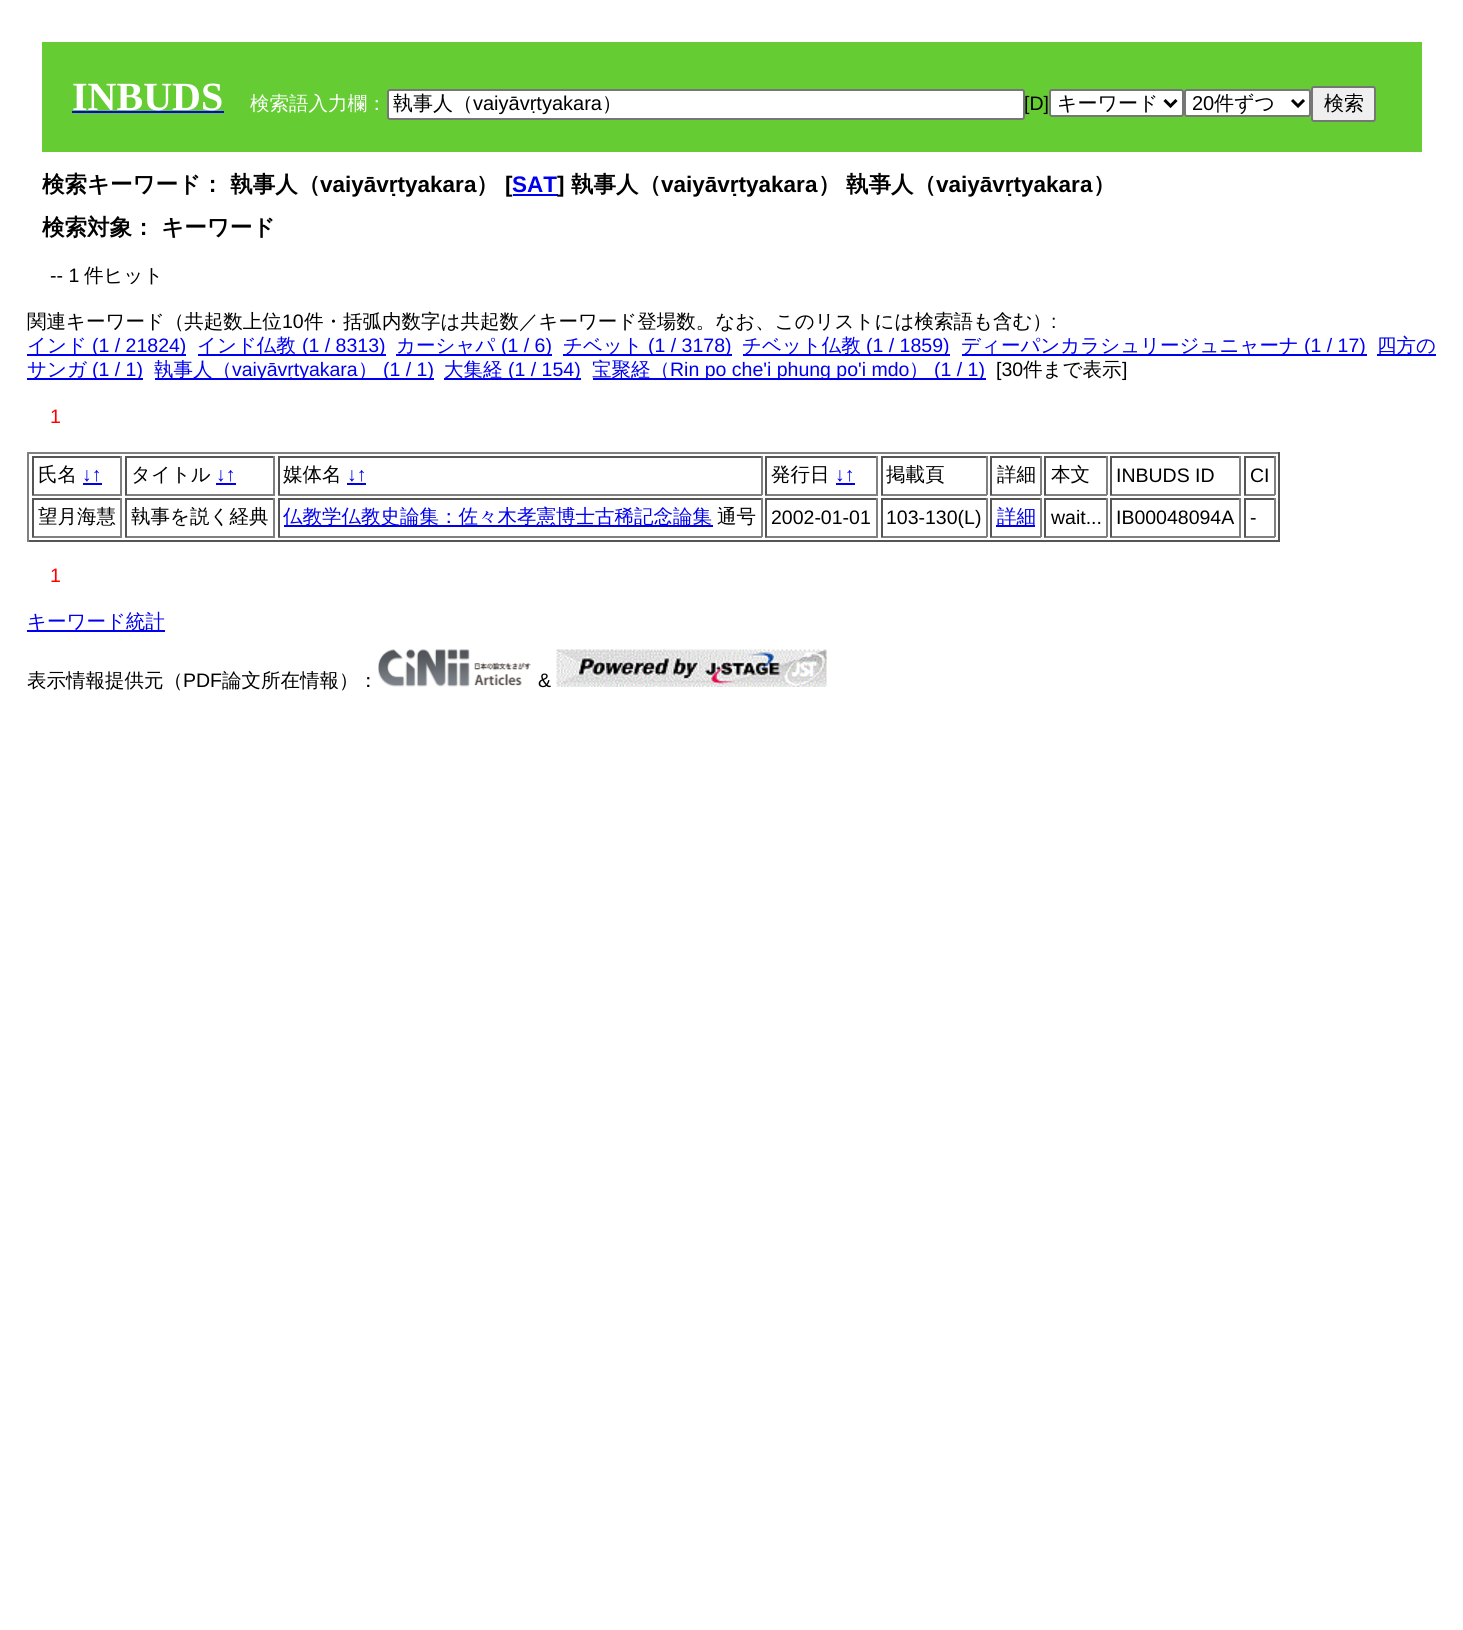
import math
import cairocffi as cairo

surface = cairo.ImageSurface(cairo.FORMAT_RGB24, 1463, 1630)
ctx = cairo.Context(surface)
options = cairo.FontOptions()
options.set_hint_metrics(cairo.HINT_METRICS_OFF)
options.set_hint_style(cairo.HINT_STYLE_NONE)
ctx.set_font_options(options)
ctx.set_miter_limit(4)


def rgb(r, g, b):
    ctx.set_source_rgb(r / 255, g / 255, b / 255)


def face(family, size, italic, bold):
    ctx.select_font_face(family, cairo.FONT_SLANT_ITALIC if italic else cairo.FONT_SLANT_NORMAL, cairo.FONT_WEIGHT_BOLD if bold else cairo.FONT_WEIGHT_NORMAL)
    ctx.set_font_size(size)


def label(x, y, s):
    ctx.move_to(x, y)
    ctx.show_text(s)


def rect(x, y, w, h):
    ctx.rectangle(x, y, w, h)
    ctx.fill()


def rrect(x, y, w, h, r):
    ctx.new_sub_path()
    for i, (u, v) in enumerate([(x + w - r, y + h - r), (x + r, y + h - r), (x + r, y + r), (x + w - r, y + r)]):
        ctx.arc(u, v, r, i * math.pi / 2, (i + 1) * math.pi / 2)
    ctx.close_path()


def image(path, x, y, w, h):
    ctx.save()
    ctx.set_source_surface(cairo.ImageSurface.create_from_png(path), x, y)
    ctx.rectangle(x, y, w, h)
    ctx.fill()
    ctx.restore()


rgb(255, 255, 255)
ctx.paint()
rgb(102, 204, 51)
rect(42, 42, 1380, 110)
face('Liberation Serif', 40, 0, 1)
rgb(255, 255, 255)
label(72, 110, 'INBUDS')
rgb(0, 0, 238)
rect(72, 111, 152, 2)
face('WenQuanYi Zen Hei Medium', 19.5, 0, 0)
rgb(255, 255, 255)
label(250, 110, '検索語入力欄：')
rrect(388, 90, 636, 29, 2)
ctx.fill_preserve()
rgb(118, 118, 118)
ctx.stroke()
face('WenQuanYi Zen Hei Medium', 20, 0, 0)
rgb(0, 0, 0)
label(393, 110, '執事人（')
face('Liberation Sans', 20, 0, 0)
label(473, 110, 'vaiyāvṛtyakara')
face('WenQuanYi Zen Hei Medium', 20, 0, 0)
label(602, 110, '）')
face('Liberation Sans', 19.5, 0, 0)
label(1024, 110, '[D]')
rgb(255, 255, 255)
rrect(1050, 90, 133, 26, 2)
ctx.fill_preserve()
rgb(118, 118, 118)
ctx.stroke()
ctx.new_path()
ctx.move_to(1164.5, 100)
ctx.line_to(1170.5, 106)
ctx.line_to(1176.5, 100)
rgb(0, 0, 0)
ctx.set_line_width(3)
ctx.stroke()
face('WenQuanYi Zen Hei Medium', 20, 0, 0)
label(1057, 110, 'キーワード')
rgb(255, 255, 255)
rrect(1185, 90, 125, 26, 2)
ctx.fill_preserve()
rgb(118, 118, 118)
ctx.set_line_width(2)
ctx.stroke()
ctx.new_path()
ctx.move_to(1292, 100)
ctx.line_to(1298, 106)
ctx.line_to(1304, 100)
rgb(0, 0, 0)
ctx.set_line_width(3)
ctx.stroke()
face('Liberation Sans', 20, 0, 0)
label(1192, 110, '20')
face('WenQuanYi Zen Hei Medium', 20, 0, 0)
label(1214, 110, '件ずつ')
rgb(239, 239, 239)
rrect(1312, 87, 63, 34, 2)
ctx.fill_preserve()
rgb(118, 118, 118)
ctx.set_line_width(2)
ctx.stroke()
rgb(0, 0, 0)
label(1324, 110, '検索')
face('WenQuanYi Zen Hei', 22.5, 0, 1)
label(42, 192, '検索キーワード： 執事人（')
face('Liberation Sans', 22.5, 0, 1)
label(320, 192, 'vaiyāvṛtyakara')
face('WenQuanYi Zen Hei', 22.5, 0, 1)
label(476, 192, '）')
face('Liberation Sans', 22.5, 0, 1)
label(505, 192, '[')
rgb(0, 0, 238)
label(512, 192, 'SAT')
rect(513, 194, 45, 2)
rgb(0, 0, 0)
label(557, 192, ']')
face('WenQuanYi Zen Hei', 22.5, 0, 1)
label(571, 192, '執事人（')
face('Liberation Sans', 22.5, 0, 1)
label(661, 192, 'vaiyāvṛtyakara')
face('WenQuanYi Zen Hei', 22.5, 0, 1)
label(818, 192, '）')
label(846, 192, '執亊人（')
face('Liberation Sans', 22.5, 0, 1)
label(936, 192, 'vaiyāvṛtyakara')
face('WenQuanYi Zen Hei', 22.5, 0, 1)
label(1093, 192, '）')
label(42, 235, '検索対象： キーワード')
face('Liberation Sans', 19.5, 0, 0)
label(50, 282, '-- 1')
face('WenQuanYi Zen Hei Medium', 19.5, 0, 0)
label(84, 282, '件ヒット')
label(27, 328, '関連キーワード（共起数上位')
face('Liberation Sans', 19.5, 0, 0)
label(282, 328, '10')
face('WenQuanYi Zen Hei Medium', 19.5, 0, 0)
label(304, 328, '件・括弧内数字は共起数／キーワード登場数。なお、このリストには検索語も含む）')
face('Liberation Sans', 19.5, 0, 0)
label(1051, 328, ':')
rgb(0, 0, 238)
rect(27, 354, 159, 2)
face('WenQuanYi Zen Hei Medium', 19.5, 0, 0)
label(27, 352, 'インド')
face('Liberation Sans', 19.5, 0, 0)
label(92, 352, '(1 / 21824)')
rect(198, 354, 188, 2)
face('WenQuanYi Zen Hei Medium', 19.5, 0, 0)
label(197, 352, 'インド仏教')
face('Liberation Sans', 19.5, 0, 0)
label(302, 352, '(1 / 8313)')
rect(396, 354, 156, 2)
face('WenQuanYi Zen Hei Medium', 19.5, 0, 0)
label(396, 352, 'カーシャパ')
face('Liberation Sans', 19.5, 0, 0)
label(501, 352, '(1 / 6)')
rect(563, 354, 169, 2)
face('WenQuanYi Zen Hei Medium', 19.5, 0, 0)
label(563, 352, 'チベット')
face('Liberation Sans', 19.5, 0, 0)
label(648, 352, '(1 / 3178)')
rect(743, 354, 207, 2)
face('WenQuanYi Zen Hei Medium', 19.5, 0, 0)
label(742, 352, 'チベット仏教')
face('Liberation Sans', 19.5, 0, 0)
label(866, 352, '(1 / 1859)')
rect(962, 354, 405, 2)
face('WenQuanYi Zen Hei Medium', 19.5, 0, 0)
label(961, 352, 'ディーパンカラシュリージュニャーナ')
face('Liberation Sans', 19.5, 0, 0)
label(1304, 352, '(1 / 17)')
rect(1377, 354, 59, 2)
face('WenQuanYi Zen Hei Medium', 19.5, 0, 0)
label(1377, 352, '四方の')
rect(27, 378, 116, 2)
label(27, 376, 'サンガ')
face('Liberation Sans', 19.5, 0, 0)
label(92, 376, '(1 / 1)')
rect(155, 378, 279, 2)
face('WenQuanYi Zen Hei Medium', 19.5, 0, 0)
label(154, 376, '執事人（')
face('Liberation Sans', 19.5, 0, 0)
label(232, 376, 'vaiyāvṛtyakara')
face('WenQuanYi Zen Hei Medium', 19.5, 0, 0)
label(358, 376, '）')
face('Liberation Sans', 19.5, 0, 0)
label(383, 376, '(1 / 1)')
rect(444, 378, 137, 2)
face('WenQuanYi Zen Hei Medium', 19.5, 0, 0)
label(444, 376, '大集経')
face('Liberation Sans', 19.5, 0, 0)
label(508, 376, '(1 / 154)')
rect(593, 378, 393, 2)
face('WenQuanYi Zen Hei Medium', 19.5, 0, 0)
label(592, 376, '宝聚経（')
face('Liberation Sans', 19.5, 0, 0)
label(670, 376, 'Rin po che\'i phung po\'i mdo')
face('WenQuanYi Zen Hei Medium', 19.5, 0, 0)
label(909, 376, '）')
face('Liberation Sans', 19.5, 0, 0)
label(934, 376, '(1 / 1)')
rgb(0, 0, 0)
label(996, 376, '[30')
face('WenQuanYi Zen Hei Medium', 19.5, 0, 0)
label(1023, 376, '件まで表示')
face('Liberation Sans', 19.5, 0, 0)
label(1122, 376, ']')
rgb(255, 0, 0)
label(50, 423, '1')
rgb(128, 128, 128)
rect(27, 452, 1253, 2)
rgb(85, 85, 85)
rect(1278, 452, 2, 90)
rect(27, 540, 1253, 2)
rgb(128, 128, 128)
rect(27, 452, 2, 90)
rgb(85, 85, 85)
rect(32, 456, 90, 2)
rgb(128, 128, 128)
rect(120, 456, 2, 39)
rect(32, 494, 90, 2)
rgb(85, 85, 85)
rect(32, 456, 2, 39)
face('WenQuanYi Zen Hei Medium', 19.5, 0, 0)
rgb(0, 0, 0)
label(38, 481, '氏名')
face('Liberation Sans', 19.5, 0, 0)
rgb(0, 0, 238)
label(82, 481, '↓↑')
rect(83, 483, 19, 2)
rgb(85, 85, 85)
rect(125, 456, 150, 2)
rgb(128, 128, 128)
rect(273, 456, 2, 39)
rect(125, 494, 150, 2)
rgb(85, 85, 85)
rect(125, 456, 2, 39)
face('WenQuanYi Zen Hei Medium', 19.5, 0, 0)
rgb(0, 0, 0)
label(131, 481, 'タイトル')
face('Liberation Sans', 19.5, 0, 0)
rgb(0, 0, 238)
label(216, 481, '↓↑')
rect(216, 483, 20, 2)
rgb(85, 85, 85)
rect(278, 456, 484, 2)
rgb(128, 128, 128)
rect(761, 456, 2, 39)
rect(278, 494, 484, 2)
rgb(85, 85, 85)
rect(278, 456, 2, 39)
face('WenQuanYi Zen Hei Medium', 19.5, 0, 0)
rgb(0, 0, 0)
label(283, 481, '媒体名')
face('Liberation Sans', 19.5, 0, 0)
rgb(0, 0, 238)
label(347, 481, '↓↑')
rect(347, 483, 19, 2)
rgb(85, 85, 85)
rect(765, 456, 113, 2)
rgb(128, 128, 128)
rect(876, 456, 2, 39)
rect(765, 494, 113, 2)
rgb(85, 85, 85)
rect(765, 456, 2, 39)
face('WenQuanYi Zen Hei Medium', 19.5, 0, 0)
rgb(0, 0, 0)
label(771, 481, '発行日')
face('Liberation Sans', 19.5, 0, 0)
rgb(0, 0, 238)
label(835, 481, '↓↑')
rect(836, 483, 19, 2)
rgb(85, 85, 85)
rect(881, 456, 106, 2)
rgb(128, 128, 128)
rect(986, 456, 2, 39)
rect(881, 494, 106, 2)
rgb(85, 85, 85)
rect(881, 456, 2, 39)
face('WenQuanYi Zen Hei Medium', 19.5, 0, 0)
rgb(0, 0, 0)
label(886, 481, '掲載頁')
rgb(85, 85, 85)
rect(990, 456, 51, 2)
rgb(128, 128, 128)
rect(1040, 456, 2, 39)
rect(990, 494, 51, 2)
rgb(85, 85, 85)
rect(990, 456, 2, 39)
rgb(0, 0, 0)
label(997, 481, '詳細')
rgb(85, 85, 85)
rect(1044, 456, 63, 2)
rgb(128, 128, 128)
rect(1106, 456, 2, 39)
rect(1044, 494, 63, 2)
rgb(85, 85, 85)
rect(1044, 456, 2, 39)
rgb(0, 0, 0)
label(1051, 481, '本文')
rgb(85, 85, 85)
rect(1110, 456, 131, 2)
rgb(128, 128, 128)
rect(1239, 456, 2, 39)
rect(1110, 494, 131, 2)
rgb(85, 85, 85)
rect(1110, 456, 2, 39)
face('Liberation Sans', 19.5, 0, 0)
rgb(0, 0, 0)
label(1116, 482, 'INBUDS ID')
rgb(85, 85, 85)
rect(1244, 456, 31, 2)
rgb(128, 128, 128)
rect(1274, 456, 2, 39)
rect(1244, 494, 31, 2)
rgb(85, 85, 85)
rect(1244, 456, 2, 39)
rgb(0, 0, 0)
label(1250, 482, 'CI')
rgb(85, 85, 85)
rect(32, 498, 90, 2)
rgb(128, 128, 128)
rect(120, 498, 2, 39)
rect(32, 536, 90, 2)
rgb(85, 85, 85)
rect(32, 498, 2, 39)
face('WenQuanYi Zen Hei Medium', 19.5, 0, 0)
rgb(0, 0, 0)
label(38, 523, '望月海慧')
rgb(85, 85, 85)
rect(125, 498, 150, 2)
rgb(128, 128, 128)
rect(273, 498, 2, 39)
rect(125, 536, 150, 2)
rgb(85, 85, 85)
rect(125, 498, 2, 39)
rgb(0, 0, 0)
label(131, 523, '執事を説く経典')
rgb(85, 85, 85)
rect(278, 498, 484, 2)
rgb(128, 128, 128)
rect(761, 498, 2, 39)
rect(278, 536, 484, 2)
rgb(85, 85, 85)
rect(278, 498, 2, 39)
rgb(0, 0, 238)
rect(284, 525, 429, 2)
label(283, 523, '仏教学仏教史論集：佐々木孝憲博士古稀記念論集')
rgb(0, 0, 0)
label(717, 523, '通号')
rgb(85, 85, 85)
rect(765, 498, 113, 2)
rgb(128, 128, 128)
rect(876, 498, 2, 39)
rect(765, 536, 113, 2)
rgb(85, 85, 85)
rect(765, 498, 2, 39)
face('Liberation Sans', 19.5, 0, 0)
rgb(0, 0, 0)
label(771, 524, '2002-01-01')
rgb(85, 85, 85)
rect(881, 498, 106, 2)
rgb(128, 128, 128)
rect(986, 498, 2, 39)
rect(881, 536, 106, 2)
rgb(85, 85, 85)
rect(881, 498, 2, 39)
rgb(0, 0, 0)
label(886, 524, '103-130(L)')
rgb(85, 85, 85)
rect(990, 498, 51, 2)
rgb(128, 128, 128)
rect(1040, 498, 2, 39)
rect(990, 536, 51, 2)
rgb(85, 85, 85)
rect(990, 498, 2, 39)
rgb(0, 0, 238)
rect(996, 525, 39, 2)
face('WenQuanYi Zen Hei Medium', 19.5, 0, 0)
label(997, 523, '詳細')
rgb(85, 85, 85)
rect(1044, 498, 63, 2)
rgb(128, 128, 128)
rect(1106, 498, 2, 39)
rect(1044, 536, 63, 2)
rgb(85, 85, 85)
rect(1044, 498, 2, 39)
face('Liberation Sans', 19.5, 0, 0)
rgb(0, 0, 0)
label(1051, 524, 'wait...')
rgb(85, 85, 85)
rect(1110, 498, 131, 2)
rgb(128, 128, 128)
rect(1239, 498, 2, 39)
rect(1110, 536, 131, 2)
rgb(85, 85, 85)
rect(1110, 498, 2, 39)
rgb(0, 0, 0)
label(1116, 524, 'IB00048094A')
rgb(85, 85, 85)
rect(1244, 498, 31, 2)
rgb(128, 128, 128)
rect(1274, 498, 2, 39)
rect(1244, 536, 31, 2)
rgb(85, 85, 85)
rect(1244, 498, 2, 39)
rgb(0, 0, 0)
label(1250, 524, '-')
rgb(255, 0, 0)
label(50, 582, '1')
rgb(0, 0, 238)
rect(27, 630, 138, 2)
face('WenQuanYi Zen Hei Medium', 19.5, 0, 0)
label(27, 628, 'キーワード統計')
rgb(0, 0, 0)
label(27, 687, '表示情報提供元（')
face('Liberation Sans', 19.5, 0, 0)
label(183, 687, 'PDF')
face('WenQuanYi Zen Hei Medium', 19.5, 0, 0)
label(222, 687, '論文所在情報）：')
image('image0.png', 378, 649, 153, 38)
face('Liberation Sans', 19.5, 0, 0)
label(538, 687, '&')
image('image1.png', 556, 649, 271, 38)
surface.write_to_png('render.png')
